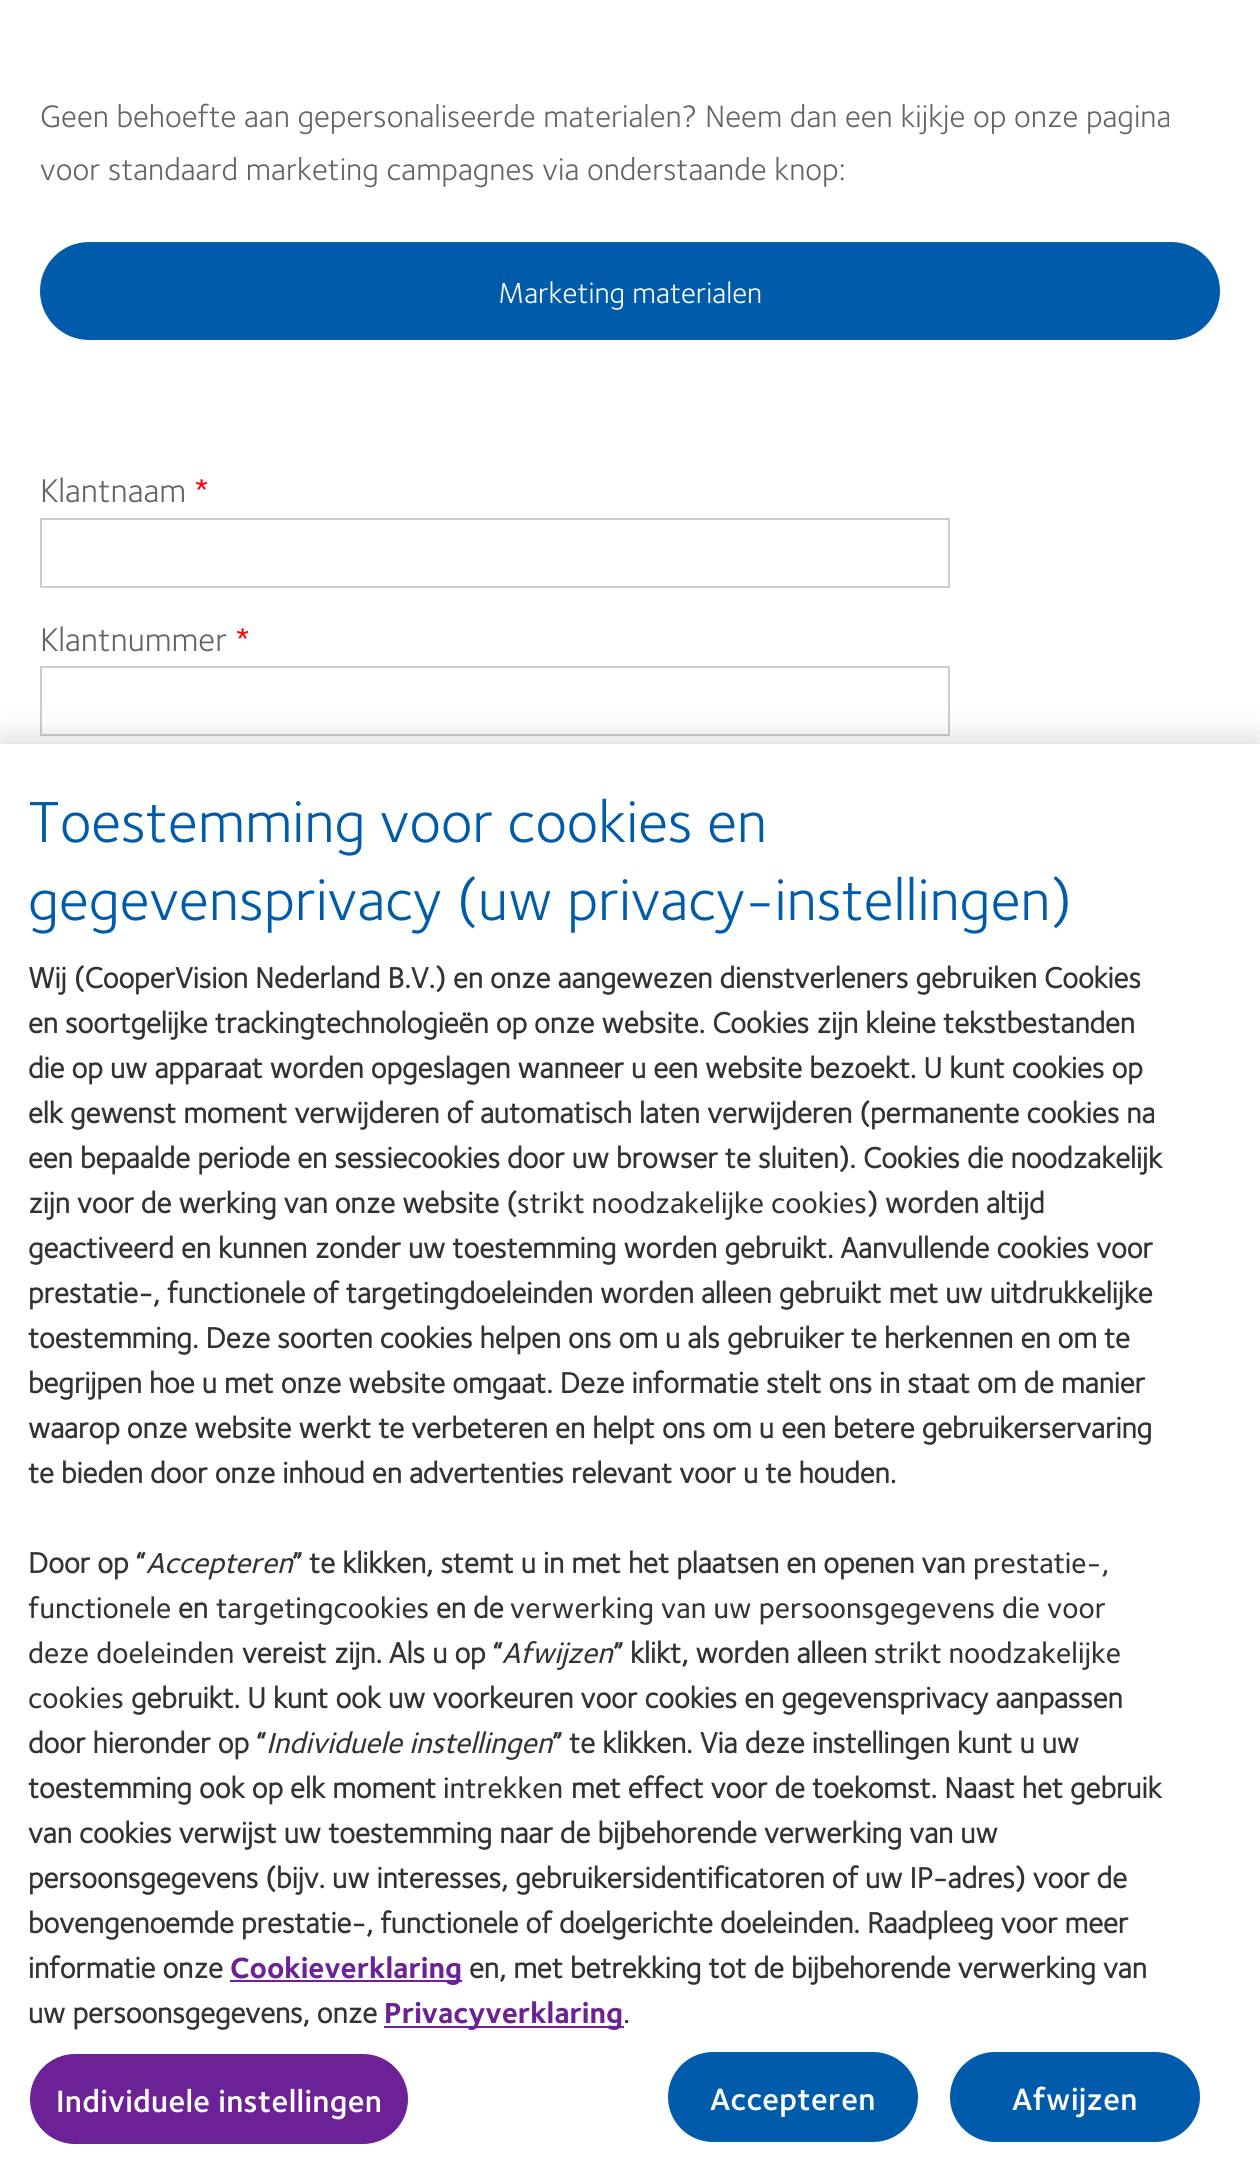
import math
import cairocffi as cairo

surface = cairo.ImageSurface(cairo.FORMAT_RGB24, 1260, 2184)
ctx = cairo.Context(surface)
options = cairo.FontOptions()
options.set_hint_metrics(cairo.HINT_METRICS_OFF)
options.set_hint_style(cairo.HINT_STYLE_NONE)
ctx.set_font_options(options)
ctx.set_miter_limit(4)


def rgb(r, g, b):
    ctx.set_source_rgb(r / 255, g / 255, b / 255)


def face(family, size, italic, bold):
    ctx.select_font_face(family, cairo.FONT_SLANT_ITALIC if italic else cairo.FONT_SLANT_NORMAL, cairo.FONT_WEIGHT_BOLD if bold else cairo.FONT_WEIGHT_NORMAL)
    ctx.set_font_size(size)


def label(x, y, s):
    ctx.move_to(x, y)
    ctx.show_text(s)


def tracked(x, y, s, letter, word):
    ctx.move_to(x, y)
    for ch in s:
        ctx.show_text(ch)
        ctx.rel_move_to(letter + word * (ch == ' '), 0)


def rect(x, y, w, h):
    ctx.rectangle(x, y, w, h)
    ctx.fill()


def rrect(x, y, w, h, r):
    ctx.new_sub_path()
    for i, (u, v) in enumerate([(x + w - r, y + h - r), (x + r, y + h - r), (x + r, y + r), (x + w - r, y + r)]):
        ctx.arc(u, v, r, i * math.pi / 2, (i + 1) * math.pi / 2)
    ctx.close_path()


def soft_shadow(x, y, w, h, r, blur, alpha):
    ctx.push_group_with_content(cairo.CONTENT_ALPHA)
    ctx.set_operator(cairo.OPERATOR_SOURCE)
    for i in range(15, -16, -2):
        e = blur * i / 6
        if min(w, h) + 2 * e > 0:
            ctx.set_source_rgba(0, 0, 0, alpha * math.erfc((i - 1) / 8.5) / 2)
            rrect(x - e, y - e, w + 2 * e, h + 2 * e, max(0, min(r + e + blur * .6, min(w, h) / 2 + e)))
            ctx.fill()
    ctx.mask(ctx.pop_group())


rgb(255, 255, 255)
ctx.paint()
face('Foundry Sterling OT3', 32, 0, 0)
rgb(99, 100, 102)
label(40, 127, 'Geen behoefte aan gepersonaliseerde materialen? Neem dan een kijkje op onze pagina')
label(40, 180, 'voor standaard marketing campagnes via onderstaande knop:')
rgb(0, 92, 171)
rrect(40, 242, 1180, 98, 49)
ctx.fill()
face('Foundry Sterling OT3', 30, 0, 0)
rgb(255, 255, 255)
label(498, 303, 'Marketing materialen')
face('Foundry Sterling OT3', 34, 0, 0)
rgb(99, 100, 102)
label(40, 502, 'Klantnaam')
rgb(255, 0, 0)
label(194, 502, '*')
ctx.rectangle(41, 519, 908, 68)
rgb(204, 204, 204)
ctx.stroke()
rgb(99, 100, 102)
label(40, 651, 'Klantnummer')
rgb(255, 0, 0)
label(235, 651, '*')
ctx.rectangle(41, 667, 908, 68)
rgb(204, 204, 204)
ctx.stroke()
rgb(0, 0, 0)
soft_shadow(0, 744, 1260, 1440, 0, 18, 0.2)
rgb(255, 255, 255)
rect(0, 744, 1260, 1440)
face('Foundry Sterling OT3', 60, 0, 0)
rgb(0, 92, 171)
label(28, 842, 'Toestemming voor cookies en')
label(28, 920, 'gegevensprivacy (uw privacy-instellingen)')
face('Foundry Sterling OT3', 30, 0, 1)
rgb(51, 51, 51)
label(28, 988, 'Wij (CooperVision Nederland B.V.) en onze aangewezen dienstverleners gebruiken Cookies')
label(28, 1033, 'en soortgelijke trackingtechnologieën op onze website. Cookies zijn kleine tekstbestanden')
label(28, 1078, 'die op uw apparaat worden opgeslagen wanneer u een website bezoekt. U kunt cookies op')
label(28, 1123, 'elk gewenst moment verwijderen of automatisch laten verwijderen (permanente cookies na')
label(28, 1168, 'een bepaalde periode en sessiecookies door uw browser te sluiten). Cookies die noodzakelijk')
label(28, 1213, 'zijn voor de werking van onze website (')
face('Foundry Sterling OT3 Medium', 30, 0, 0)
label(517, 1213, 'strikt noodzakelijke cookies')
face('Foundry Sterling OT3', 30, 0, 1)
label(867, 1213, ') worden altijd')
label(28, 1258, 'geactiveerd en kunnen zonder uw toestemming worden gebruikt. Aanvullende cookies voor')
label(28, 1303, 'prestatie-, functionele of targetingdoeleinden worden alleen gebruikt met uw uitdrukkelijke')
label(28, 1348, 'toestemming. Deze soorten cookies helpen ons om u als gebruiker te herkennen en om te')
label(28, 1393, 'begrijpen hoe u met onze website omgaat. Deze informatie stelt ons in staat om de manier')
label(28, 1438, 'waarop onze website werkt te verbeteren en helpt ons om u een betere gebruikerservaring')
label(28, 1483, 'te bieden door onze inhoud en advertenties relevant voor u te houden.')
label(28, 1573, 'Door op “')
face('Foundry Sterling OT3 Medium', 30, 1, 0)
label(146, 1573, 'Accepteren')
face('Foundry Sterling OT3', 30, 0, 1)
label(292, 1573, '” te klikken, stemt u in met het plaatsen en openen van')
face('Foundry Sterling OT3 Medium', 30, 0, 0)
label(973, 1573, 'prestatie-,')
label(28, 1618, 'functionele')
face('Foundry Sterling OT3', 30, 0, 1)
label(178, 1618, 'en')
face('Foundry Sterling OT3 Medium', 30, 0, 0)
label(216, 1618, 'targetingcookies')
face('Foundry Sterling OT3', 30, 0, 1)
label(436, 1618, 'en de')
face('Foundry Sterling OT3 Medium', 30, 0, 0)
label(510, 1618, 'verwerking van uw persoonsgegevens die voor')
label(28, 1663, 'deze doeleinden')
face('Foundry Sterling OT3', 30, 0, 1)
label(242, 1663, 'vereist zijn. Als u op “')
face('Foundry Sterling OT3 Medium', 30, 1, 0)
label(502, 1663, 'Afwijzen')
face('Foundry Sterling OT3', 30, 0, 1)
label(613, 1663, '” klikt, worden alleen')
face('Foundry Sterling OT3 Medium', 30, 0, 0)
label(874, 1663, 'strikt noodzakelijke')
label(28, 1708, 'cookies')
face('Foundry Sterling OT3', 30, 0, 1)
label(131, 1708, 'gebruikt. U kunt ook uw voorkeuren voor cookies en gegevensprivacy aanpassen')
label(28, 1753, 'door hieronder op “')
face('Foundry Sterling OT3 Medium', 30, 1, 0)
label(266, 1753, 'Individuele instellingen')
face('Foundry Sterling OT3', 30, 0, 1)
label(552, 1753, '” te klikken. Via deze instellingen kunt u uw')
label(28, 1798, 'toestemming ook op elk moment')
face('Foundry Sterling OT3 Medium', 30, 0, 0)
label(443, 1798, 'intrekken')
face('Foundry Sterling OT3', 30, 0, 1)
label(571, 1798, 'met effect voor de toekomst. Naast het gebruik')
label(28, 1843, 'van cookies verwijst uw toestemming naar de bijbehorende verwerking van uw')
label(28, 1888, 'persoonsgegevens (bijv. uw interesses, gebruikersidentificatoren of uw IP-adres) voor de')
label(28, 1933, 'bovengenoemde prestatie-, functionele of doelgerichte doeleinden. Raadpleeg voor meer')
label(28, 1978, 'informatie onze')
rgb(108, 33, 150)
rect(230, 1980, 232, 2)
face('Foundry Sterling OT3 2', 30, 0, 1)
label(230, 1978, 'Cookieverklaring')
face('Foundry Sterling OT3', 30, 0, 1)
rgb(51, 51, 51)
label(469, 1978, 'en, met betrekking tot de bijbehorende verwerking van')
label(28, 2023, 'uw persoonsgegevens, onze')
rgb(108, 33, 150)
rect(384, 2026, 240, 2)
face('Foundry Sterling OT3 2', 30, 0, 1)
label(384, 2023, 'Privacyverklaring')
face('Foundry Sterling OT3 Medium', 30, 0, 0)
rgb(51, 51, 51)
label(623, 2023, '.')
rgb(108, 33, 150)
rrect(29, 2053, 380, 92, 46)
ctx.fill_preserve()
rgb(255, 255, 255)
ctx.stroke()
face('Foundry Sterling OT3 SemiBold', 32, 0, 0)
tracked(56, 2112, 'Individuele instellingen', 0.3, 0)
rgb(0, 92, 171)
rrect(669, 2053, 248, 88, 44)
ctx.fill_preserve()
ctx.stroke()
rgb(255, 255, 255)
tracked(710, 2110, 'Accepteren', 0.3, 0)
rgb(0, 92, 171)
rrect(951, 2053, 248, 88, 44)
ctx.fill_preserve()
ctx.stroke()
rgb(255, 255, 255)
tracked(1012, 2110, 'Afwijzen', 0.3, 0)
surface.write_to_png('render.png')
